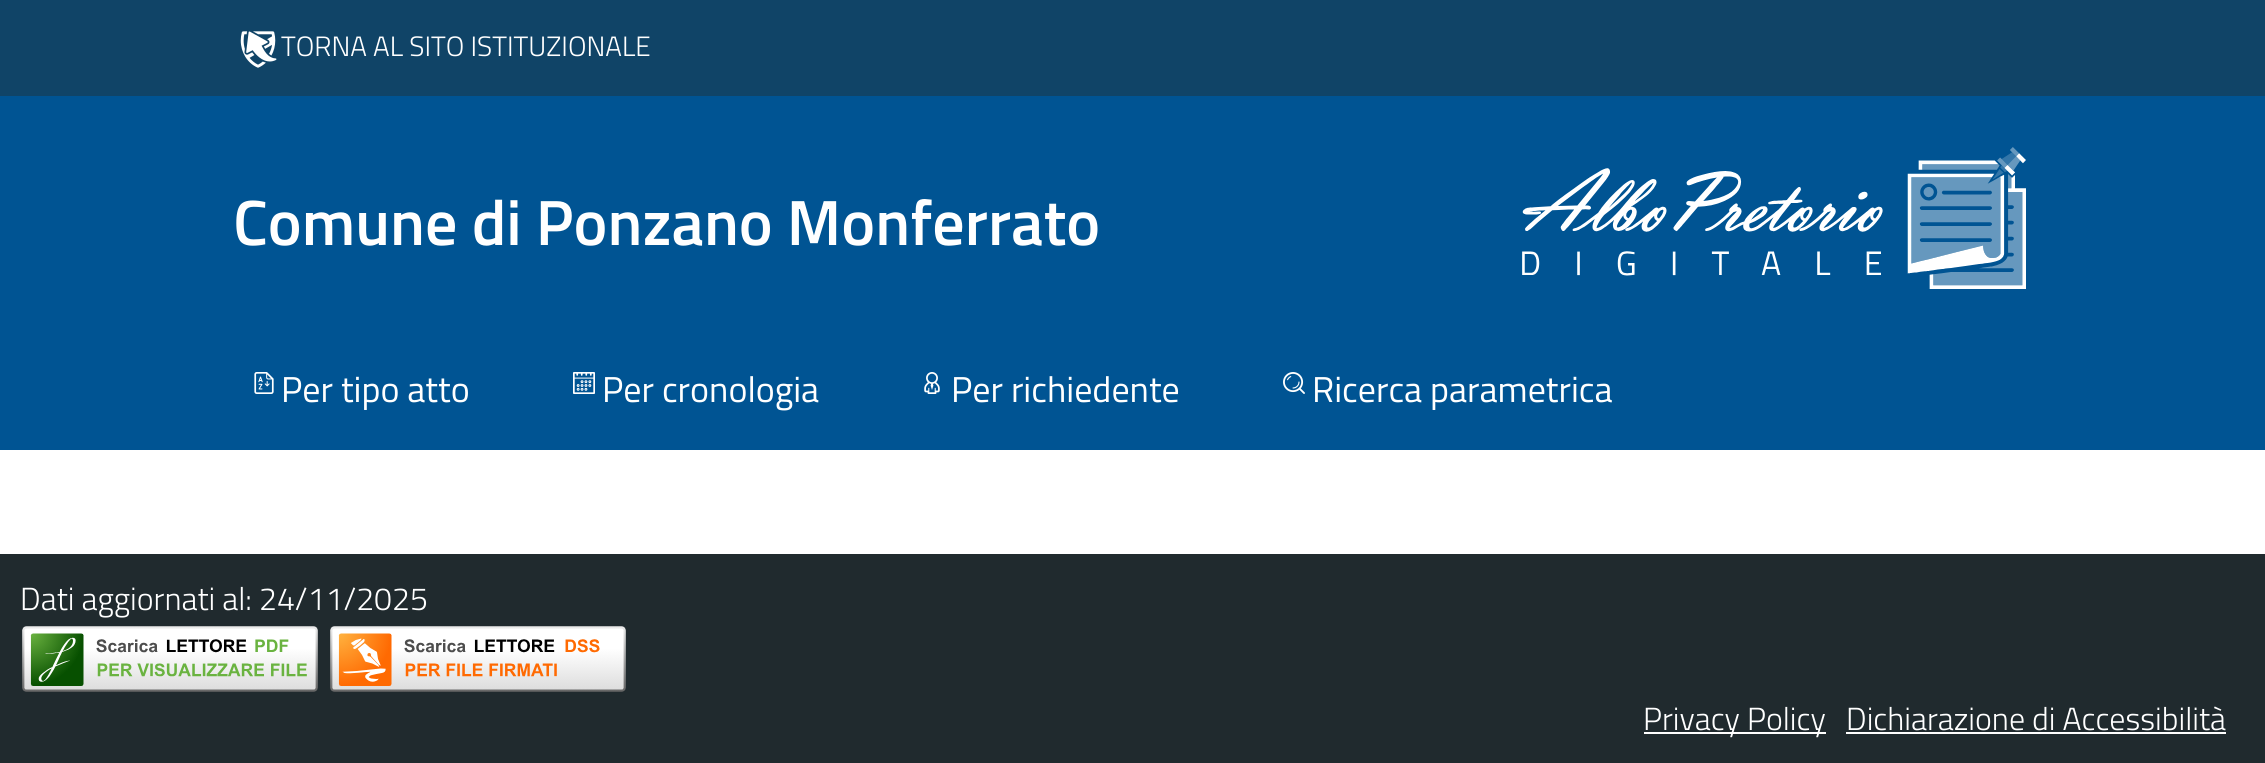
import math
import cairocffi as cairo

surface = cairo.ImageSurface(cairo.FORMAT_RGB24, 2265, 763)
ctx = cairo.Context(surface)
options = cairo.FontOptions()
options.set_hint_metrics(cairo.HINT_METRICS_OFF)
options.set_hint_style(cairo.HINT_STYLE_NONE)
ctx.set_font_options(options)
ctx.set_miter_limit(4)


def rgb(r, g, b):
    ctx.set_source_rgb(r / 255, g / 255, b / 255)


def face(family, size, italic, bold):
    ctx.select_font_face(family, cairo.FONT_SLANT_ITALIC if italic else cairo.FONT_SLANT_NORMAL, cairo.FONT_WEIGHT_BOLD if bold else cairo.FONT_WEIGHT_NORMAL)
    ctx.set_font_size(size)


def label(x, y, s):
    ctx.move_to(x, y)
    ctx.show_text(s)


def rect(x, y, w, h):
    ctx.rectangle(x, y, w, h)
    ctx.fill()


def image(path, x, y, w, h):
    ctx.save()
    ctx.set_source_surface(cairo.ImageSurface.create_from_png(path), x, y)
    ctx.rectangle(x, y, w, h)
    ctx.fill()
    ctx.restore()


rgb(255, 255, 255)
ctx.paint()
rgb(16, 68, 103)
rect(0, 0, 2265, 96)
image('image0.png', 240, 31, 37, 37)
face('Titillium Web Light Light', 28, 0, 0)
rgb(255, 255, 255)
label(281, 56, 'TORNA AL SITO ISTITUZIONALE')
rgb(0, 84, 147)
rect(0, 96, 2265, 354)
face('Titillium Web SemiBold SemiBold', 64, 0, 0)
rgb(255, 255, 255)
label(233, 245, 'Comune di Ponzano Monferrato')
image('image1.png', 1522, 147, 504, 142)
image('image2.png', 254, 372, 20, 22)
face('Titillium Web', 36, 0, 0)
label(281, 402, 'Per tipo atto')
image('image3.png', 573, 372, 22, 22)
label(602, 402, 'Per cronologia')
image('image4.png', 924, 372, 16, 22)
label(951, 402, 'Per richiedente')
image('image5.png', 1283, 372, 22, 22)
label(1312, 402, 'Ricerca parametrica')
rgb(32, 42, 46)
rect(0, 554, 2265, 209)
face('Titillium Web Light Light', 32, 0, 0)
rgb(255, 255, 255)
label(20, 610, 'Dati aggiornati al: 24/11/2025')
image('image6.png', 22, 626, 296, 66)
image('image7.png', 330, 626, 296, 66)
rect(1644, 732, 182, 2)
label(1643, 730, 'Privacy Policy')
label(1846, 730, 'Dichiarazione di Accessibilità')
rect(1846, 732, 380, 2)
surface.write_to_png('render.png')
